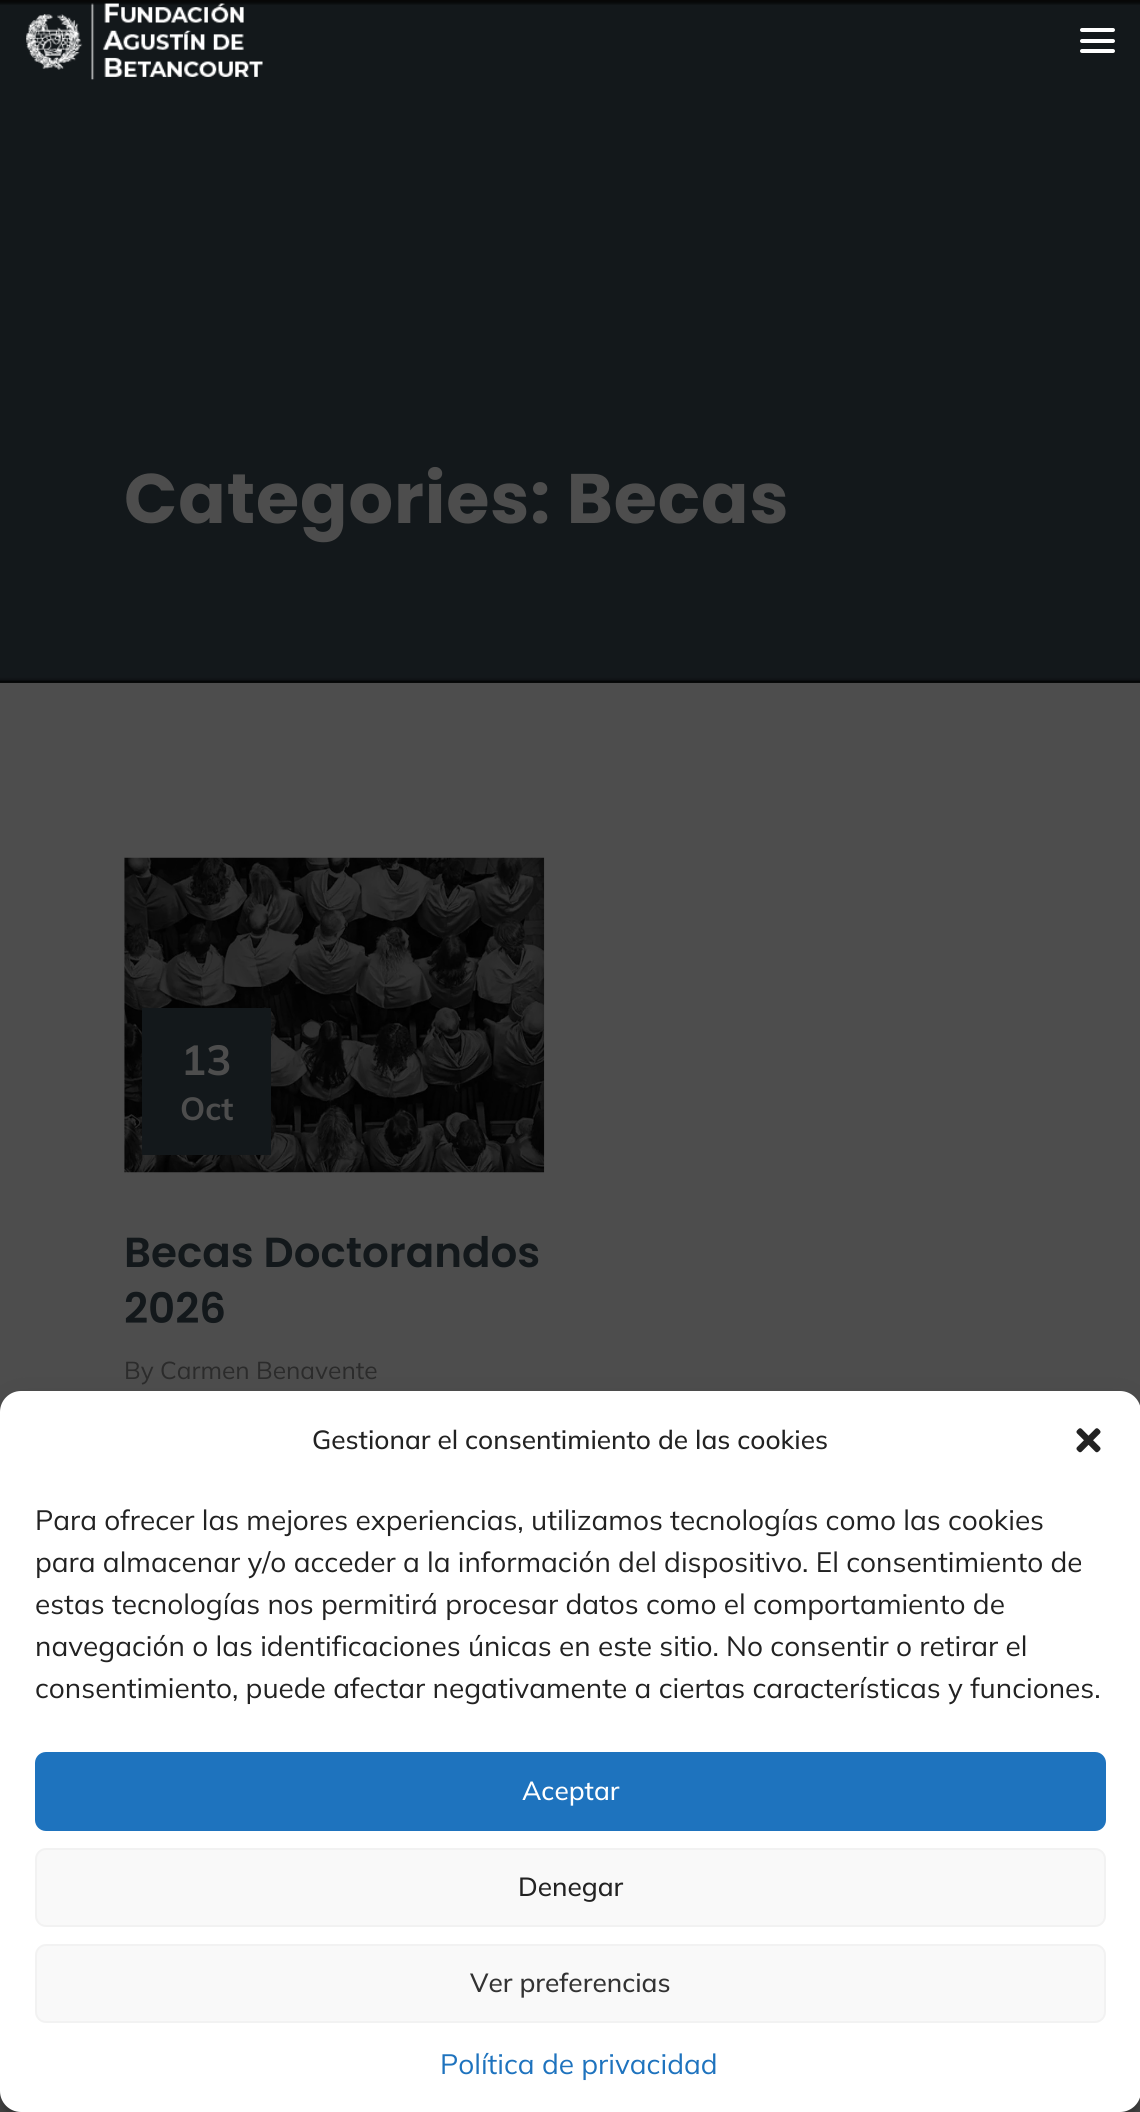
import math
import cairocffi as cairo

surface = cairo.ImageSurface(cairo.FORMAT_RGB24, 1140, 2112)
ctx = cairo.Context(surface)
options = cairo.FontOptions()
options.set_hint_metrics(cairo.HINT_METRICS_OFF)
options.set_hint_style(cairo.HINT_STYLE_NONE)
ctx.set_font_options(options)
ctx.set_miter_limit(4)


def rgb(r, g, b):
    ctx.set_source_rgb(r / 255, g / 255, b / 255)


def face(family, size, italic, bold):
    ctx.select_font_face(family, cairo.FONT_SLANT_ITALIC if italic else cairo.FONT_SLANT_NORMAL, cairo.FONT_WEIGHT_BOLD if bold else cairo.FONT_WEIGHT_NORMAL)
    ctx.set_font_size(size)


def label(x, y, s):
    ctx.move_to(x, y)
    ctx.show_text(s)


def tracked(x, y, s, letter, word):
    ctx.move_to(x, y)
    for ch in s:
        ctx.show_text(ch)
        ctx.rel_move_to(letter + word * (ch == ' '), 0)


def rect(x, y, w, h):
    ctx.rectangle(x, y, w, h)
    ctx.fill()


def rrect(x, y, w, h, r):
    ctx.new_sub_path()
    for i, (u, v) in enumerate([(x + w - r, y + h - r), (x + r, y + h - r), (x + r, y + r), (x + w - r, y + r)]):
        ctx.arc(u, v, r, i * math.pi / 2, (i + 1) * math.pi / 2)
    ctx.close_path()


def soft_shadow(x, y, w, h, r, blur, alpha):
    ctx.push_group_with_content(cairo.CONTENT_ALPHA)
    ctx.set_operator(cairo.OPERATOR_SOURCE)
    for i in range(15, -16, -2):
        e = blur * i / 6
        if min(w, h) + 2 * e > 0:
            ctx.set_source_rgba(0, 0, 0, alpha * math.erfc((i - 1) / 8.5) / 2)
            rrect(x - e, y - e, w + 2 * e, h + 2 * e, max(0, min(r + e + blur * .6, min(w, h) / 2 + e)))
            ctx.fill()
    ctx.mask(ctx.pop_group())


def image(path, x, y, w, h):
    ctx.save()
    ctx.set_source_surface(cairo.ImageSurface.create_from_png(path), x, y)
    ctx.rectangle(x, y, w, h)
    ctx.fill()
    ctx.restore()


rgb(77, 77, 77)
ctx.paint()
rgb(10, 10, 10)
rect(0, 0, 1140, 683)
image('image1.png', 0, 0, 1140, 683)
image('image0.png', 26, 3, 237, 77)
rgb(255, 255, 255)
rrect(1080, 28, 35, 4, 2)
ctx.fill()
rrect(1080, 39, 35, 4, 2)
ctx.fill()
rrect(1080, 49, 35, 4, 2)
ctx.fill()
face('Poppins', 70, 0, 1)
rgb(77, 77, 77)
tracked(124, 523, 'Categories: Becas', 0.9, 0)
image('image2.png', 124, 857, 421, 316)
rgb(19, 24, 27)
rect(142, 1008, 129, 147)
face('Mulish', 42, 0, 1)
rgb(77, 77, 77)
label(181, 1075, '13')
face('Mulish', 32, 0, 1)
label(180, 1120, 'Oct')
face('Poppins SemiBold', 42, 0, 0)
rgb(19, 24, 27)
label(124, 1267, 'Becas Doctorandos')
label(124, 1323, '2026')
face('Mulish', 24.5, 0, 0)
rgb(43, 43, 43)
label(124, 1379, 'By Carmen Benavente')
rgb(0, 0, 0)
soft_shadow(0, 1402, 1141, 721, 21, 5, 0.23)
soft_shadow(0, 1409, 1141, 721, 21, 17.5, 0.19)
rgb(255, 255, 255)
rrect(0, 1391, 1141, 721, 21)
ctx.fill()
face('Mulish Medium', 26.25, 0, 0)
rgb(34, 34, 34)
label(312, 1449, 'Gestionar el consentimiento de las cookies')
image('image3.png', 1076, 1428, 25, 25)
face('Mulish', 28, 0, 0)
label(35, 1530, 'Para ofrecer las mejores experiencias, utilizamos tecnologías como las cookies')
label(35, 1572, 'para almacenar y/o acceder a la información del dispositivo. El consentimiento de')
label(35, 1614, 'estas tecnologías nos permitirá procesar datos como el comportamiento de')
label(35, 1656, 'navegación o las identificaciones únicas en este sitio. No consentir o retirar el')
label(35, 1698, 'consentimiento, puede afectar negativamente a ciertas características y funciones.')
rgb(30, 115, 190)
rrect(36, 1753, 1069, 77, 10)
ctx.fill_preserve()
ctx.stroke()
face('Mulish Medium', 26.25, 0, 0)
rgb(255, 255, 255)
label(522, 1800, 'Aceptar')
rgb(249, 249, 249)
rrect(36, 1849, 1069, 77, 10)
ctx.fill_preserve()
rgb(242, 242, 242)
ctx.stroke()
rgb(34, 34, 34)
label(518, 1896, 'Denegar')
rgb(249, 249, 249)
rrect(36, 1945, 1069, 77, 10)
ctx.fill_preserve()
rgb(242, 242, 242)
ctx.stroke()
rgb(51, 51, 51)
label(470, 1992, 'Ver preferencias')
face('Mulish', 28, 0, 0)
rgb(30, 115, 190)
label(440, 2074, 'Política de privacidad')
surface.write_to_png('render.png')
